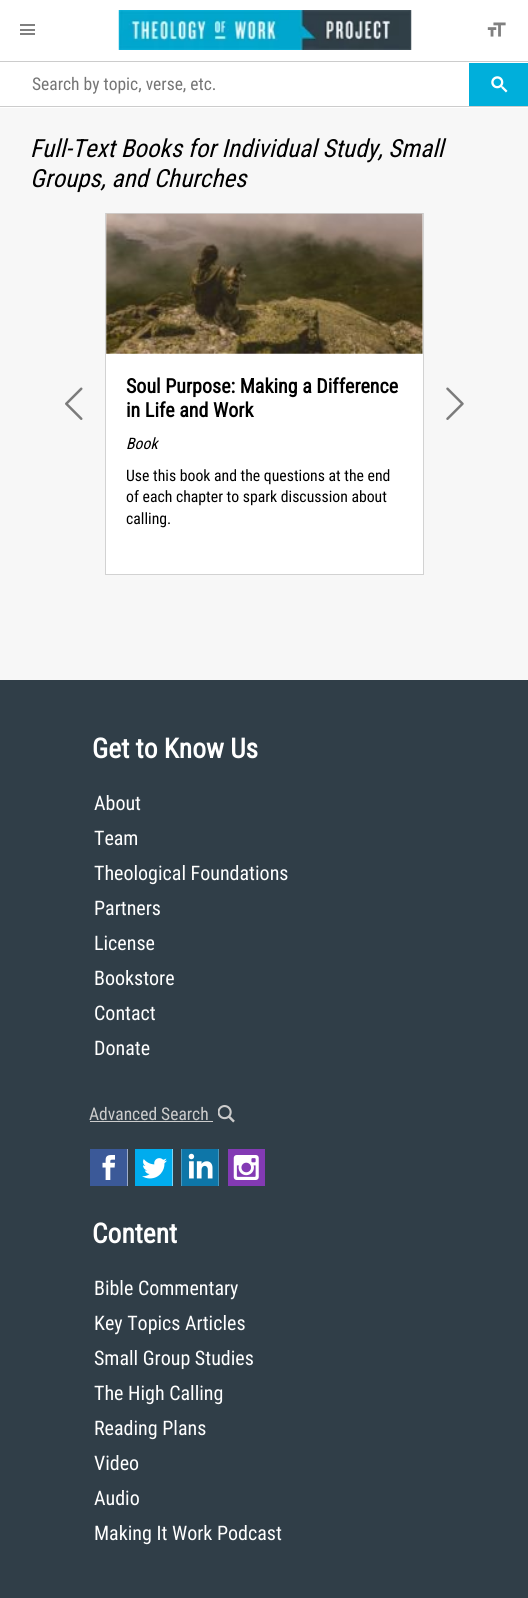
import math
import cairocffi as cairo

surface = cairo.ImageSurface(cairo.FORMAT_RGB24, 528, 1598)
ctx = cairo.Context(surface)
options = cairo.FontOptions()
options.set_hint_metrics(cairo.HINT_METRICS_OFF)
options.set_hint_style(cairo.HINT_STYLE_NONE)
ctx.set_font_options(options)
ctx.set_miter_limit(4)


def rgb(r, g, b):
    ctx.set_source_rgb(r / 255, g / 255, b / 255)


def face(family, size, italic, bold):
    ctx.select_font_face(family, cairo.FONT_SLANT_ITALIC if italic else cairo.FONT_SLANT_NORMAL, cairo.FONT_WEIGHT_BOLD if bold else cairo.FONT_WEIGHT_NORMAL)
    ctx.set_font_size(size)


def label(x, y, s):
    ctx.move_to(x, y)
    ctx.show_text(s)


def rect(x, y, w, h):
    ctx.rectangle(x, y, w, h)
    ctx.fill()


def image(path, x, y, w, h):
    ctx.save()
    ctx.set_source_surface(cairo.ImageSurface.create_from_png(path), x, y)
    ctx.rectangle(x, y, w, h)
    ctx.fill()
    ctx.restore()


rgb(255, 255, 255)
ctx.paint()
rgb(128, 128, 128)
rect(20, 24, 15, 2)
rect(20, 29, 15, 2)
rect(20, 33, 15, 2)
image('image0.png', 118, 10, 294, 40)
image('image1.png', 487, 22, 19, 15)
rgb(204, 204, 204)
rect(0, 61, 528, 1)
rect(0, 106, 528, 1)
face('Roboto Condensed', 17.5, 0, 0)
rgb(117, 117, 117)
label(32, 90, 'Search by topic, verse, etc.')
rgb(0, 175, 219)
rect(469, 63, 59, 43)
image('image2.png', 491, 76, 17, 17)
rgb(247, 247, 247)
rect(0, 108, 528, 572)
face('Roboto Condensed', 25, 1, 0)
rgb(0, 0, 0)
label(30, 157, 'Full-Text Books for Individual Study, Small')
label(30, 187, 'Groups, and Churches')
image('image3.png', 65, 387, 18, 33)
rgb(255, 255, 255)
ctx.rectangle(105.5, 213.5, 318, 361)
ctx.fill_preserve()
rgb(210, 210, 210)
ctx.set_line_width(1)
ctx.stroke()
image('image4.png', 106, 213, 317, 141)
face('Roboto Condensed', 20, 0, 1)
rgb(0, 0, 0)
label(126, 393, 'Soul Purpose: Making a Difference')
label(126, 417, 'in Life and Work')
face('Roboto Condensed', 15.75, 1, 0)
label(126, 449, 'Book')
face('Roboto Condensed', 15.75, 0, 0)
label(126, 481, 'Use this book and the questions at the end')
label(126, 502, 'of each chapter to spark discussion about')
label(126, 524, 'calling.')
image('image5.png', 446, 387, 18, 33)
rgb(48, 62, 72)
rect(0, 680, 528, 918)
face('Roboto Condensed', 27.5, 0, 1)
rgb(255, 255, 255)
label(92, 758, 'Get to Know Us')
face('Roboto Condensed', 20, 0, 0)
label(94, 810, 'About')
label(94, 845, 'Team')
label(94, 880, 'Theological Foundations')
label(94, 915, 'Partners')
label(94, 950, 'License')
label(94, 985, 'Bookstore')
label(94, 1020, 'Contact')
label(94, 1055, 'Donate')
face('Roboto Condensed', 17.5, 0, 0)
rgb(204, 204, 204)
label(89, 1120, 'Advanced Search')
rect(90, 1121, 123, 1)
image('image6.png', 218, 1105, 17, 18)
image('image7.png', 90, 1149, 38, 37)
image('image8.png', 135, 1149, 38, 37)
image('image9.png', 181, 1149, 38, 37)
image('image10.png', 228, 1149, 37, 37)
face('Roboto Condensed', 27.5, 0, 1)
rgb(255, 255, 255)
label(92, 1243, 'Content')
face('Roboto Condensed', 20, 0, 0)
label(94, 1295, 'Bible Commentary')
label(94, 1330, 'Key Topics Articles')
label(94, 1365, 'Small Group Studies')
label(94, 1400, 'The High Calling')
label(94, 1435, 'Reading Plans')
label(94, 1470, 'Video')
label(94, 1505, 'Audio')
label(94, 1540, 'Making It Work Podcast')
surface.write_to_png('render.png')
